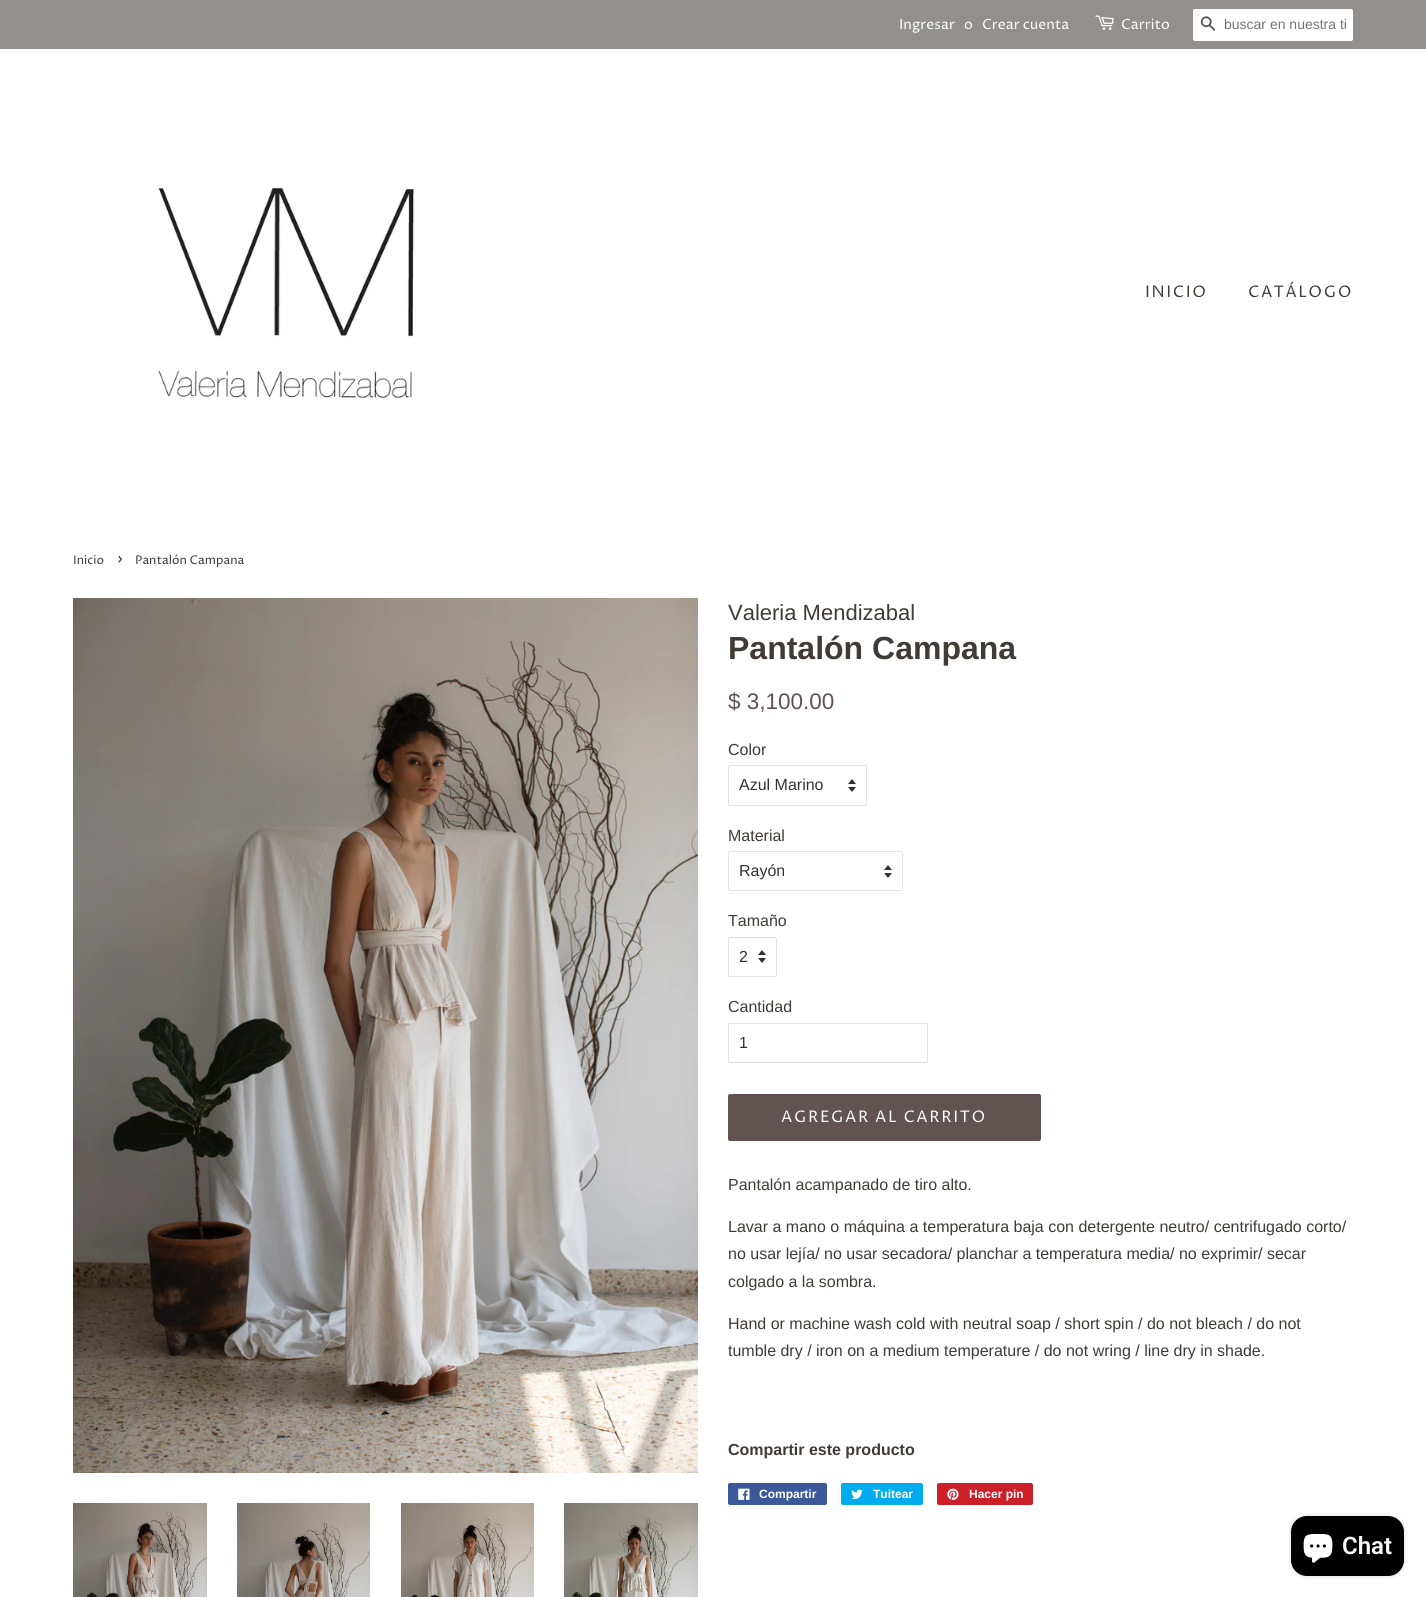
import math
import cairocffi as cairo

surface = cairo.ImageSurface(cairo.FORMAT_RGB24, 1426, 1597)
ctx = cairo.Context(surface)
options = cairo.FontOptions()
options.set_hint_metrics(cairo.HINT_METRICS_OFF)
options.set_hint_style(cairo.HINT_STYLE_NONE)
ctx.set_font_options(options)
ctx.set_miter_limit(4)


def rgb(r, g, b):
    ctx.set_source_rgb(r / 255, g / 255, b / 255)


def face(family, size, italic, bold):
    ctx.select_font_face(family, cairo.FONT_SLANT_ITALIC if italic else cairo.FONT_SLANT_NORMAL, cairo.FONT_WEIGHT_BOLD if bold else cairo.FONT_WEIGHT_NORMAL)
    ctx.set_font_size(size)


def label(x, y, s):
    ctx.move_to(x, y)
    ctx.show_text(s)


def tracked(x, y, s, letter, word):
    ctx.move_to(x, y)
    for ch in s:
        ctx.show_text(ch)
        ctx.rel_move_to(letter + word * (ch == ' '), 0)


def rect(x, y, w, h):
    ctx.rectangle(x, y, w, h)
    ctx.fill()


def rrect(x, y, w, h, r):
    ctx.new_sub_path()
    for i, (u, v) in enumerate([(x + w - r, y + h - r), (x + r, y + h - r), (x + r, y + r), (x + w - r, y + r)]):
        ctx.arc(u, v, r, i * math.pi / 2, (i + 1) * math.pi / 2)
    ctx.close_path()


def soft_shadow(x, y, w, h, r, blur, alpha):
    ctx.push_group_with_content(cairo.CONTENT_ALPHA)
    ctx.set_operator(cairo.OPERATOR_SOURCE)
    for i in range(15, -16, -2):
        e = blur * i / 6
        if min(w, h) + 2 * e > 0:
            ctx.set_source_rgba(0, 0, 0, alpha * math.erfc((i - 1) / 8.5) / 2)
            rrect(x - e, y - e, w + 2 * e, h + 2 * e, max(0, min(r + e + blur * .6, min(w, h) / 2 + e)))
            ctx.fill()
    ctx.mask(ctx.pop_group())


def image(path, x, y, w, h):
    ctx.save()
    ctx.set_source_surface(cairo.ImageSurface.create_from_png(path), x, y)
    ctx.rectangle(x, y, w, h)
    ctx.fill()
    ctx.restore()


rgb(255, 255, 255)
ctx.paint()
rgb(146, 143, 140)
rect(0, 0, 1426, 49)
face('Proza Libre', 14, 0, 0)
rgb(255, 255, 255)
label(899, 29, 'Ingresar')
label(964, 29, 'o')
label(982, 29, 'Crear cuenta')
image('image0.png', 1095, 15, 19, 15)
label(1121, 29, 'Carrito')
rrect(1193, 9, 160, 32, 2)
ctx.fill()
image('image1.png', 1200, 16, 16, 15)
face('Liberation Sans', 14, 0, 0)
rgb(117, 117, 117)
label(1224, 29, 'buscar en nuestra ti')
image('image2.png', 158, 187, 257, 212)
face('Proza Libre', 16, 0, 0)
rgb(64, 59, 55)
tracked(1145, 297, 'INICIO', 1.6, 0)
tracked(1248, 297, 'CATÁLOGO', 1.6, 0)
face('Proza Libre', 12, 0, 0)
label(73, 564, 'Inicio')
face('Proza Libre', 17, 0, 0)
label(117, 564, '›')
face('Proza Libre', 12, 0, 0)
label(135, 564, 'Pantalón Campana')
image('image3.png', 73, 598, 625, 875)
image('image4.png', 73, 1503, 134, 94)
image('image5.png', 237, 1503, 133, 94)
image('image6.png', 401, 1503, 133, 94)
image('image7.png', 564, 1503, 134, 94)
face('Liberation Sans', 22, 0, 0)
label(728, 620, 'Valeria Mendizabal')
face('Liberation Sans', 32, 0, 1)
label(728, 659, 'Pantalón Campana')
face('Liberation Sans', 22.5, 0, 0)
rgb(98, 83, 82)
label(728, 709, '$ 3,100.00')
face('Liberation Sans', 16, 0, 0)
rgb(64, 59, 55)
label(728, 755, 'Color')
image('image8.png', 848, 779, 8, 13)
rrect(728.5, 765.5, 138, 40, 1.5)
rgb(226, 226, 225)
ctx.set_line_width(1)
ctx.stroke()
rgb(51, 51, 51)
label(739, 790, 'Azul Marino')
rgb(64, 59, 55)
label(728, 841, 'Material')
image('image8.png', 884, 865, 8, 13)
rrect(728.5, 851.5, 174, 39, 1.5)
rgb(226, 226, 225)
ctx.stroke()
rgb(51, 51, 51)
label(739, 876, 'Rayón')
rgb(64, 59, 55)
label(728, 926, 'Tamaño')
image('image8.png', 758, 950, 8, 13)
rrect(728.5, 937.5, 48, 39, 1.5)
rgb(226, 226, 225)
ctx.stroke()
rgb(51, 51, 51)
label(739, 962, '2')
rgb(64, 59, 55)
label(728, 1012, 'Cantidad')
rrect(728.5, 1023.5, 199, 39, 1.5)
rgb(226, 226, 225)
ctx.stroke()
rgb(51, 51, 51)
label(739, 1048, '1')
rgb(98, 83, 82)
rrect(728, 1094, 313, 47, 2)
ctx.fill()
face('Proza Libre', 16, 0, 0)
rgb(255, 255, 255)
tracked(781, 1122, 'AGREGAR AL CARRITO', 1.6, 0)
face('Liberation Sans', 16, 0, 0)
rgb(64, 59, 55)
label(728, 1190, 'Pantalón acampanado de tiro alto.')
label(728, 1232, 'Lavar a mano o máquina a temperatura baja con detergente neutro/ centrifugado corto/')
label(728, 1259, 'no usar lejía/ no usar secadora/ planchar a temperatura media/ no exprimir/ secar')
label(728, 1287, 'colgado a la sombra.')
label(728, 1329, 'Hand or machine wash cold with neutral soap / short spin / do not bleach / do not')
label(728, 1356, 'tumble dry / iron on a medium temperature / do not wring / line dry in shade.')
face('Liberation Sans', 16, 0, 1)
label(728, 1455, 'Compartir este producto')
rgb(59, 89, 152)
rrect(728, 1483, 99, 22, 2)
ctx.fill()
image('image9.png', 738, 1488, 12, 12)
face('Liberation Sans', 12, 0, 1)
rgb(255, 255, 255)
label(759, 1498, 'Compartir')
rgb(0, 172, 237)
rrect(841, 1483, 82, 22, 2)
ctx.fill()
image('image10.png', 851, 1489, 12, 10)
rgb(255, 255, 255)
label(873, 1498, 'Tuitear')
rgb(203, 32, 39)
rrect(937, 1483, 96, 22, 2)
ctx.fill()
image('image11.png', 947, 1488, 12, 12)
rgb(255, 255, 255)
label(969, 1498, 'Hacer pin')
rgb(0, 0, 0)
soft_shadow(1291, 1516, 113, 60, 16, 2.5, 0.15)
rgb(0, 0, 0)
rrect(1291, 1516, 113, 60, 16)
ctx.fill()
image('image12.png', 1303, 1534, 30, 29)
face('Roboto SemiBold', 24, 0, 0)
rgb(255, 255, 255)
label(1342, 1554, 'Chat')
surface.write_to_png('render.png')
